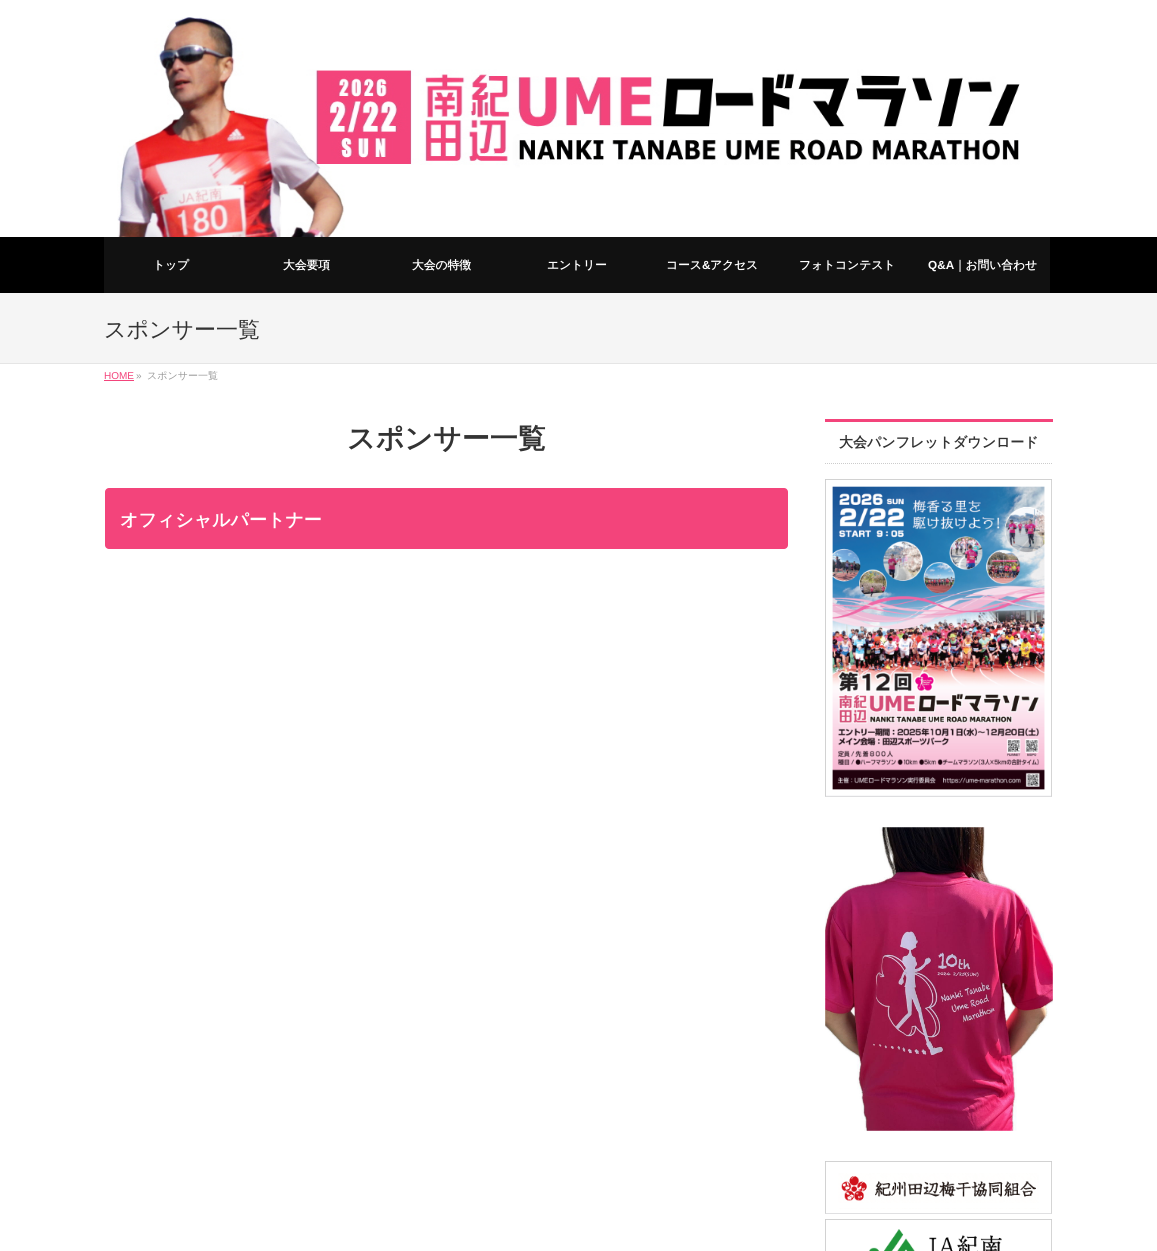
import math
import cairocffi as cairo

surface = cairo.ImageSurface(cairo.FORMAT_RGB24, 1157, 1251)
ctx = cairo.Context(surface)
options = cairo.FontOptions()
options.set_hint_metrics(cairo.HINT_METRICS_OFF)
options.set_hint_style(cairo.HINT_STYLE_NONE)
ctx.set_font_options(options)
ctx.set_miter_limit(4)


def rgb(r, g, b):
    ctx.set_source_rgb(r / 255, g / 255, b / 255)


def face(family, size, italic, bold):
    ctx.select_font_face(family, cairo.FONT_SLANT_ITALIC if italic else cairo.FONT_SLANT_NORMAL, cairo.FONT_WEIGHT_BOLD if bold else cairo.FONT_WEIGHT_NORMAL)
    ctx.set_font_size(size)


def label(x, y, s):
    ctx.move_to(x, y)
    ctx.show_text(s)


def rect(x, y, w, h):
    ctx.rectangle(x, y, w, h)
    ctx.fill()


def rrect(x, y, w, h, r):
    ctx.new_sub_path()
    for i, (u, v) in enumerate([(x + w - r, y + h - r), (x + r, y + h - r), (x + r, y + r), (x + w - r, y + r)]):
        ctx.arc(u, v, r, i * math.pi / 2, (i + 1) * math.pi / 2)
    ctx.close_path()


def image(path, x, y, w, h):
    ctx.save()
    ctx.set_source_surface(cairo.ImageSurface.create_from_png(path), x, y)
    ctx.rectangle(x, y, w, h)
    ctx.fill()
    ctx.restore()


rgb(255, 255, 255)
ctx.paint()
image('image0.png', 117, 17, 903, 220)
rgb(0, 0, 0)
rect(0, 237, 1157, 56)
rgb(17, 17, 17)
rect(104, 237, 946, 56)
face('WenQuanYi Zen Hei', 11.75, 0, 1)
rgb(255, 255, 255)
label(153, 269, 'トップ')
label(283, 269, '大会要項')
label(412, 269, '大会の特徴')
label(547, 269, 'エントリー')
label(666, 269, 'コース')
face('Liberation Sans', 11.75, 0, 1)
label(702, 269, '&')
face('WenQuanYi Zen Hei', 11.75, 0, 1)
label(710, 269, 'アクセス')
label(799, 269, 'フォトコンテスト')
face('Liberation Sans', 11.75, 0, 1)
label(928, 269, 'Q&A')
face('WenQuanYi Zen Hei', 11.75, 0, 1)
label(954, 269, '｜お問い合わせ')
rgb(245, 245, 245)
rect(0, 293, 1157, 70)
rgb(229, 229, 229)
rect(0, 363, 1157, 1)
face('WenQuanYi Zen Hei Medium', 22, 0, 0)
rgb(51, 51, 51)
label(104, 337, 'スポンサー一覧')
face('Liberation Sans', 10, 0, 0)
rgb(243, 68, 123)
label(104, 379, 'HOME')
rect(104, 380, 30, 1)
rgb(153, 153, 153)
label(136, 379, '»')
face('WenQuanYi Zen Hei Medium', 10, 0, 0)
label(147, 379, 'スポンサー一覧')
face('WenQuanYi Zen Hei', 28, 0, 1)
rgb(51, 51, 51)
label(347, 448, 'スポンサー一覧')
rgb(243, 68, 123)
rrect(105, 488, 683, 61, 4)
ctx.fill()
face('WenQuanYi Zen Hei', 18, 0, 1)
rgb(255, 255, 255)
label(120, 526, 'オフィシャルパートナー')
rgb(243, 68, 123)
rect(825, 419, 228, 3)
ctx.new_path()
ctx.move_to(825, 463.5)
ctx.line_to(1053, 463.5)
rgb(204, 204, 204)
ctx.set_line_width(1)
ctx.set_dash([1, 1])
ctx.stroke()
face('WenQuanYi Zen Hei', 14, 0, 1)
rgb(51, 51, 51)
label(839, 447, '大会パンフレットダウンロード')
image('image1.png', 825, 479, 227, 318)
image('image2.png', 825, 827, 228, 304)
image('image3.png', 825, 1161, 227, 53)
image('image4.png', 825, 1219, 227, 32)
surface.write_to_png('render.png')
